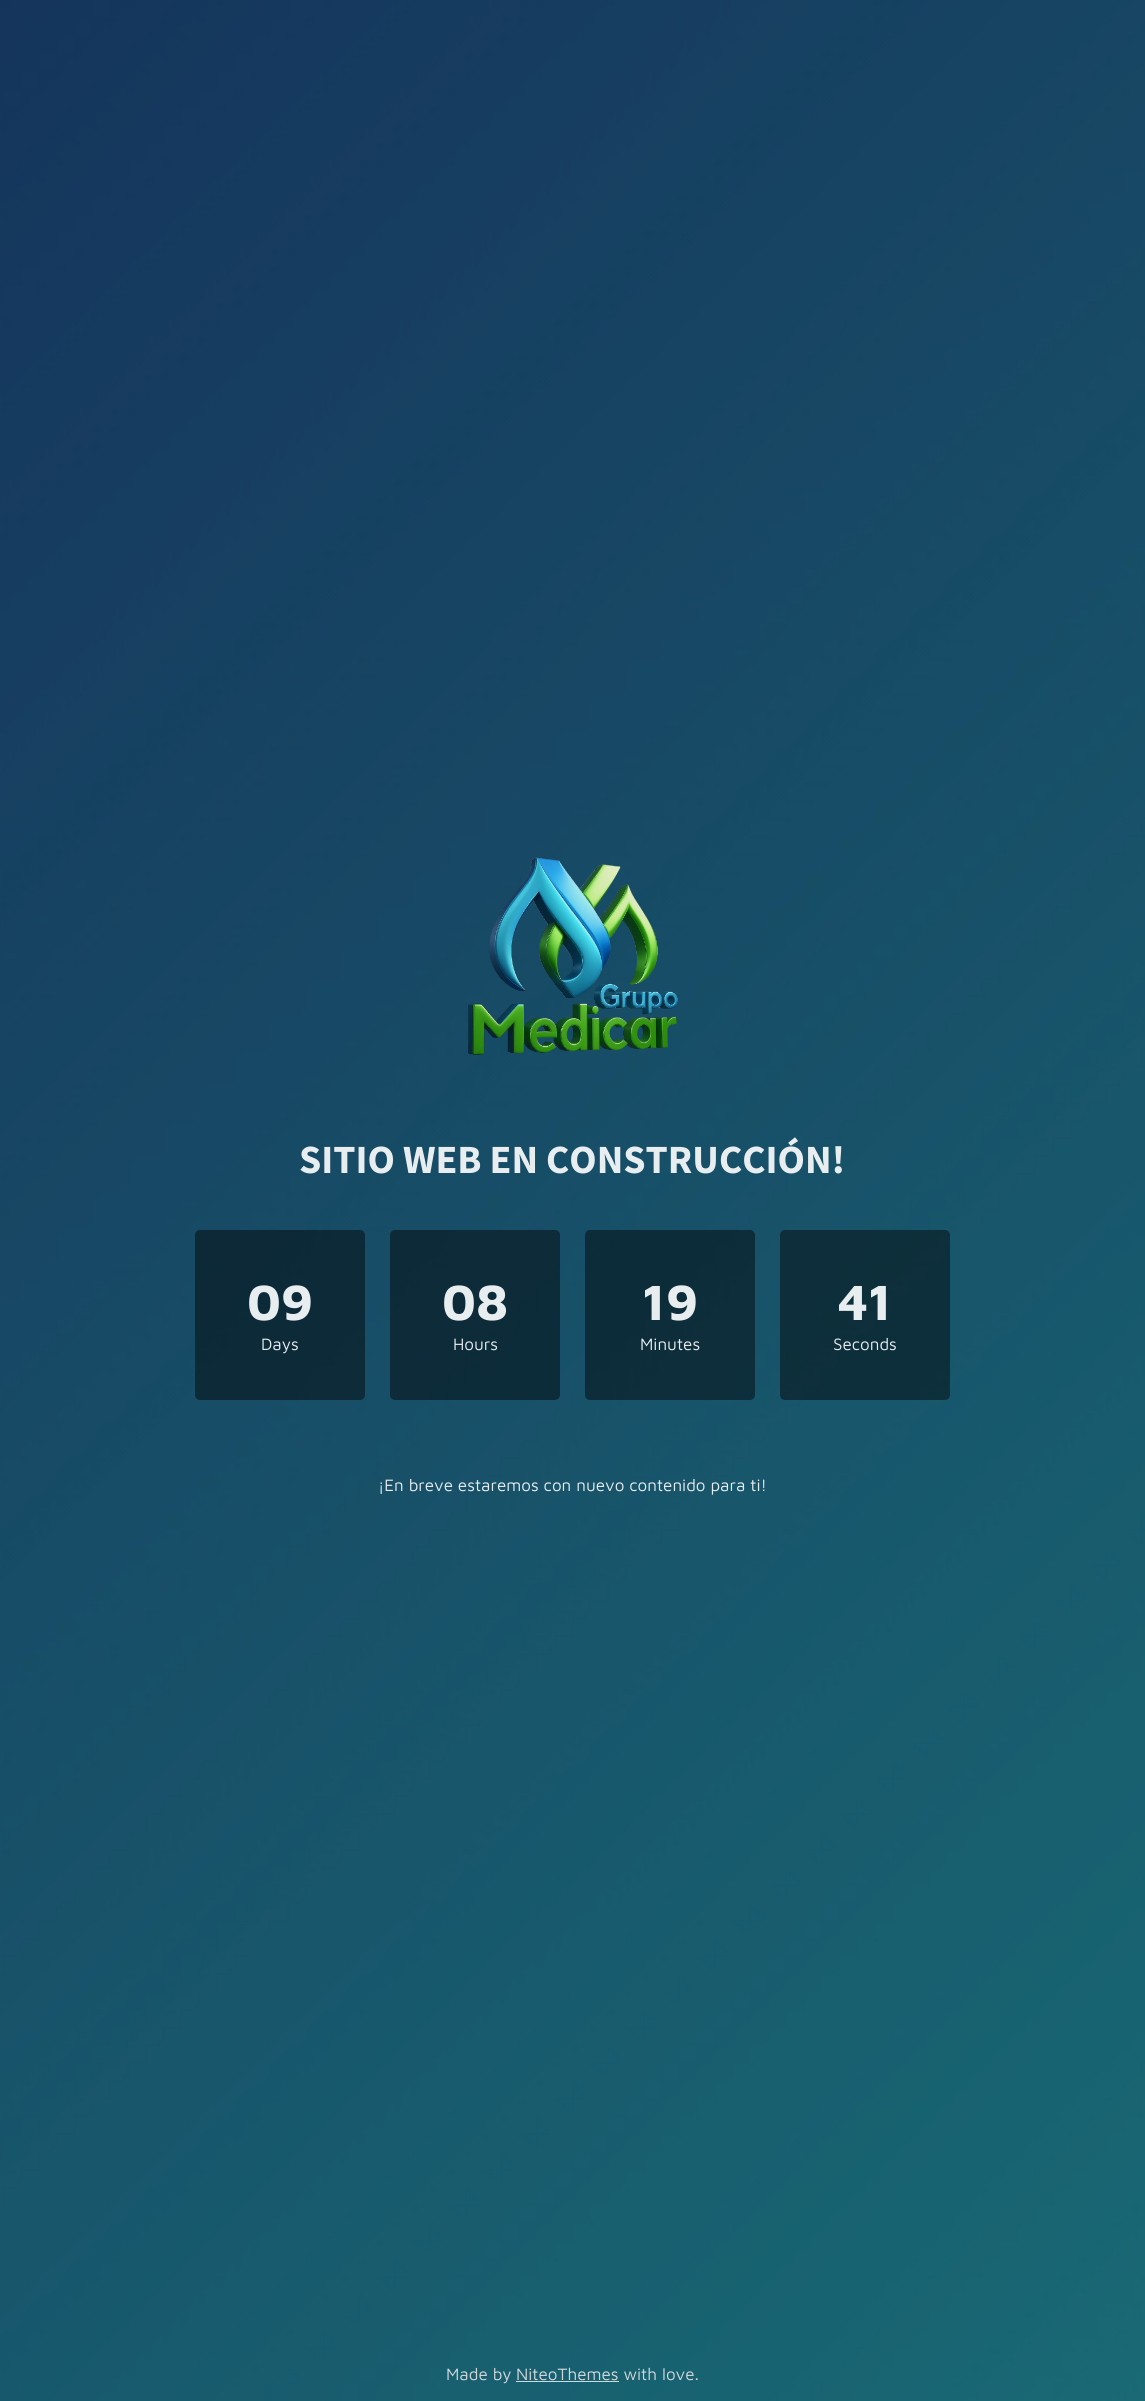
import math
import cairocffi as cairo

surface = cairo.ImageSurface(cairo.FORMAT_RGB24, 1145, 2401)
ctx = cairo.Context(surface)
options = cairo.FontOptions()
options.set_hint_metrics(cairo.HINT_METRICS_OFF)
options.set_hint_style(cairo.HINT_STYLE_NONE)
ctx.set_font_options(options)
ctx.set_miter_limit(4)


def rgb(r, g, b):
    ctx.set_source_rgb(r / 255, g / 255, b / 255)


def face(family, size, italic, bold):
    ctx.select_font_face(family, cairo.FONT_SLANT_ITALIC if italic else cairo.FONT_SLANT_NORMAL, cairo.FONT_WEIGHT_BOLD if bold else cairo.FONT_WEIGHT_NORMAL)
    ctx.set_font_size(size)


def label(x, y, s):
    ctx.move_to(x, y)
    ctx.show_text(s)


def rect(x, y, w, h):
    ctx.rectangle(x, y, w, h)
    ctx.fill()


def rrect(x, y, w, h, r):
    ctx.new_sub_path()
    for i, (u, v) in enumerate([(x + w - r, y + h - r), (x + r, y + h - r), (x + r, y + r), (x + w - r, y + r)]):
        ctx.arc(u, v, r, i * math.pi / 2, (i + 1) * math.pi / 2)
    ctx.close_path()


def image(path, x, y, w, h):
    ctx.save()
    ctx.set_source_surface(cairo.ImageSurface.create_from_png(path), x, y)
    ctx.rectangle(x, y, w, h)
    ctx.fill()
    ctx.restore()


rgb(255, 255, 255)
ctx.paint()
image('image0.png', 0, 0, 1145, 2401)
image('image1.png', 468, 857, 210, 198)
face('Source Sans Pro', 40, 0, 1)
rgb(232, 237, 240)
label(299, 1173, 'SITIO WEB EN CONSTRUCCIÓN!')
ctx.set_source_rgba(0, 0, 0, 0.45)
rrect(195, 1230, 170, 170, 5)
ctx.fill()
face('Maven Pro', 51, 0, 1)
rgb(232, 237, 240)
label(247, 1320, '09')
face('Maven Pro', 17, 0, 0)
label(261, 1350, 'Days')
ctx.set_source_rgba(0, 0, 0, 0.45)
rrect(390, 1230, 170, 170, 5)
ctx.fill()
face('Maven Pro', 51, 0, 1)
rgb(232, 237, 240)
label(442, 1320, '08')
face('Maven Pro', 17, 0, 0)
label(453, 1350, 'Hours')
ctx.set_source_rgba(0, 0, 0, 0.45)
rrect(585, 1230, 170, 170, 5)
ctx.fill()
face('Maven Pro', 51, 0, 1)
rgb(232, 237, 240)
label(642, 1320, '19')
face('Maven Pro', 17, 0, 0)
label(640, 1350, 'Minutes')
ctx.set_source_rgba(0, 0, 0, 0.45)
rrect(780, 1230, 170, 170, 5)
ctx.fill()
face('Maven Pro', 51, 0, 1)
rgb(232, 237, 240)
label(837, 1320, '41')
face('Maven Pro', 17, 0, 0)
label(833, 1350, 'Seconds')
label(378, 1491, '¡En breve estaremos con nuevo contenido para ti!')
rgb(209, 216, 218)
label(446, 2380, 'Made by')
label(516, 2380, 'NiteoThemes with love.')
rgb(209, 217, 218)
rect(516, 2381, 103, 1)
surface.write_to_png('render.png')
